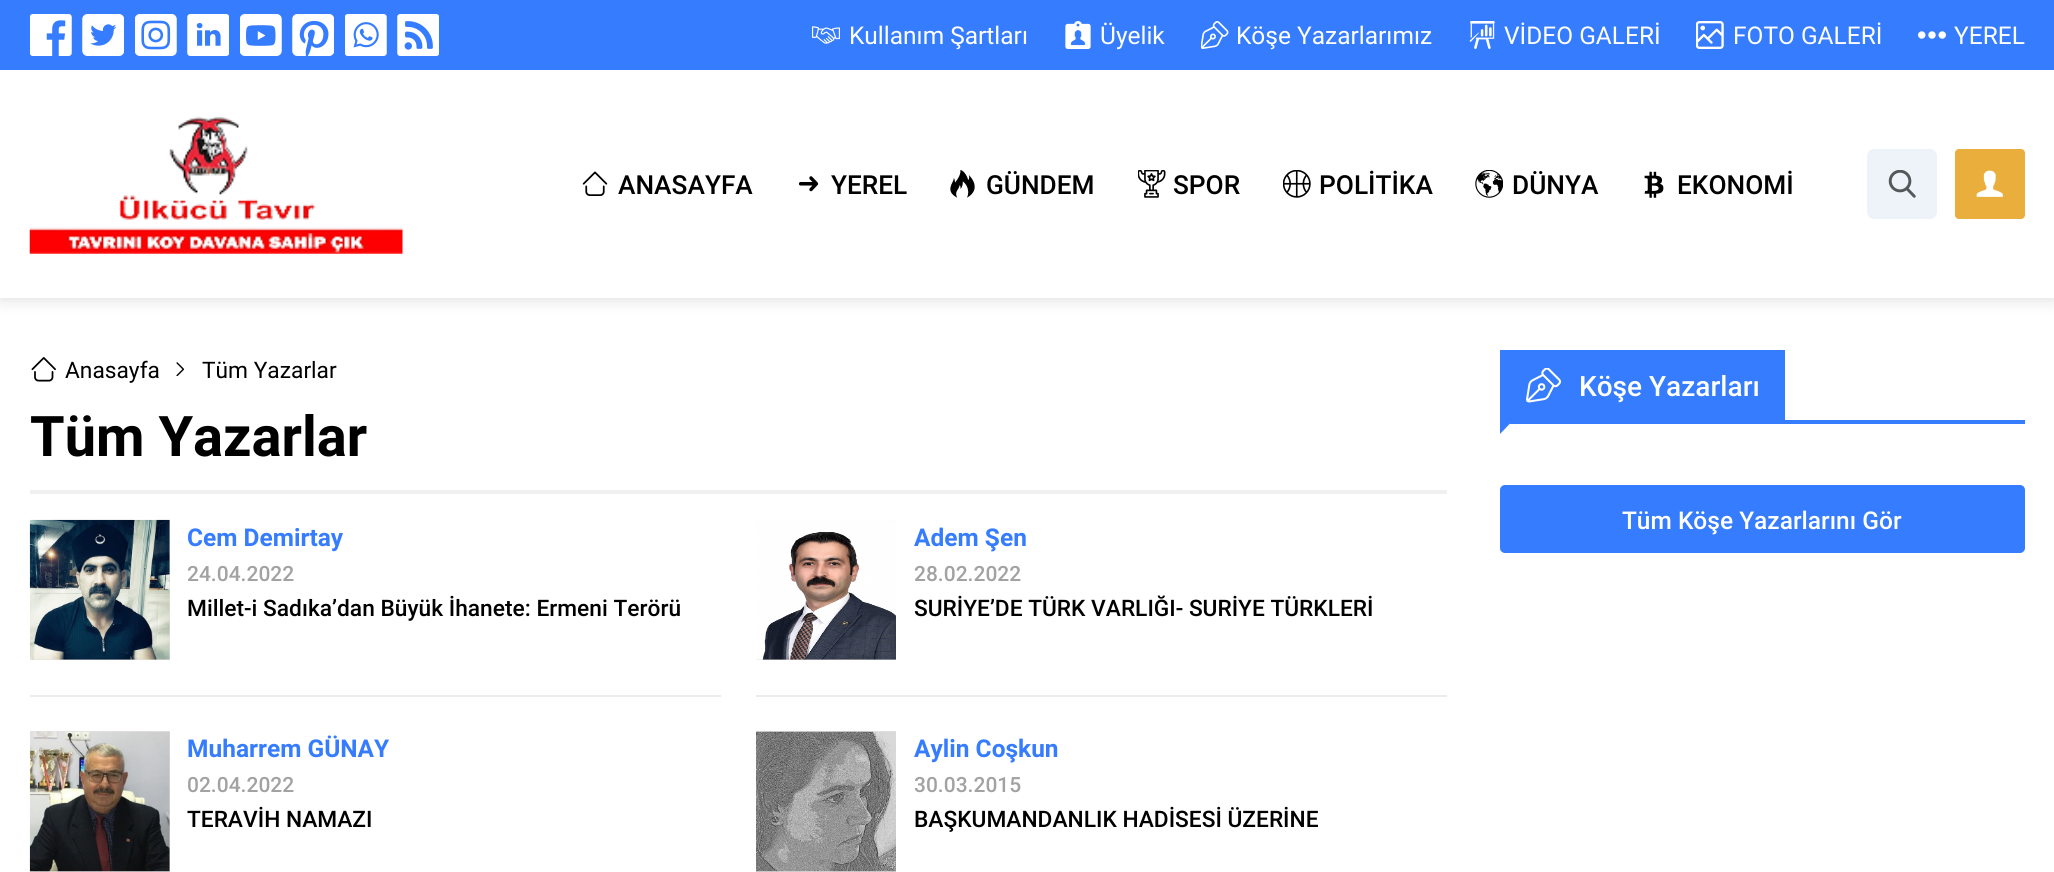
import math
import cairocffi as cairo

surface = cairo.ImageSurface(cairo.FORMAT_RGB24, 2054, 872)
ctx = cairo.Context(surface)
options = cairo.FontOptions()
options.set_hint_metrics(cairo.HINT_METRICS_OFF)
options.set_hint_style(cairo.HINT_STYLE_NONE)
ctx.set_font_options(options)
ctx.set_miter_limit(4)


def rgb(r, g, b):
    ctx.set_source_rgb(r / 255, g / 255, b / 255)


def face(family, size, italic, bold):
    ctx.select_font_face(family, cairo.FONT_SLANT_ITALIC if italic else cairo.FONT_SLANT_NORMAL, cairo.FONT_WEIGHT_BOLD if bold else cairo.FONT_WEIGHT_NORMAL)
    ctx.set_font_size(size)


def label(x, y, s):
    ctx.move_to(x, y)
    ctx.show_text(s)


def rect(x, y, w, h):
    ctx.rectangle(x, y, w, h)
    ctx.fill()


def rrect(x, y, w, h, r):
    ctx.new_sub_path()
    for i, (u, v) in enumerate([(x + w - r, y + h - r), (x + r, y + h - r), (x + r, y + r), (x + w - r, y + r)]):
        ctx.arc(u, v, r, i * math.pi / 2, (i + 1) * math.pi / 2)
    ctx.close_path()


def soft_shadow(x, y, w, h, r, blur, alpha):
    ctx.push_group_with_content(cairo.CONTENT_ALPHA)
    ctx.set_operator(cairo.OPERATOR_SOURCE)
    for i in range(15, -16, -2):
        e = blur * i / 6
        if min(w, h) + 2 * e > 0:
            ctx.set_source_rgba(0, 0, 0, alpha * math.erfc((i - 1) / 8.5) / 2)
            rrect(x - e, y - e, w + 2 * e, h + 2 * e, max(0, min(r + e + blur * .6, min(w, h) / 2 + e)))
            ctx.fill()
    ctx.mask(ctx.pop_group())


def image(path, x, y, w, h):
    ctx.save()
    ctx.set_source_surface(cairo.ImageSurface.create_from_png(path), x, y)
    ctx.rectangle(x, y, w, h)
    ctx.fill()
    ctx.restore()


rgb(255, 255, 255)
ctx.paint()
rgb(0, 0, 0)
soft_shadow(0, 0, 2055, 298, 0, 9, 0.15)
rgb(255, 255, 255)
rect(0, 70, 2054, 228)
rgb(54, 124, 255)
rect(0, 0, 2054, 70)
image('image0.png', 30, 14, 42, 42)
image('image1.png', 82, 14, 42, 42)
image('image2.png', 135, 14, 42, 42)
image('image3.png', 187, 14, 42, 42)
image('image4.png', 240, 14, 42, 42)
image('image5.png', 292, 14, 42, 42)
image('image6.png', 345, 14, 42, 42)
image('image7.png', 397, 14, 42, 42)
image('image8.png', 812, 26, 28, 18)
face('Roboto', 24.5, 0, 0)
rgb(255, 255, 255)
label(849, 44, 'Kullanım Şartları')
image('image9.png', 1065, 21, 26, 28)
label(1100, 44, 'Üyelik')
image('image10.png', 1201, 21, 28, 28)
label(1236, 44, 'Köşe Yazarlarımız')
image('image11.png', 1469, 21, 26, 28)
label(1504, 44, 'VİDEO GALERİ')
image('image12.png', 1696, 21, 28, 28)
label(1733, 44, 'FOTO GALERİ')
image('image13.png', 1918, 31, 28, 8)
label(1954, 44, 'YEREL')
image('image14.png', 29, 116, 374, 138)
image('image15.png', 582, 171, 26, 25)
face('Roboto Medium', 26.25, 0, 0)
rgb(0, 0, 0)
label(618, 194, 'ANASAYFA')
image('image16.png', 798, 176, 21, 16)
label(831, 194, 'YEREL')
image('image17.png', 950, 170, 25, 28)
label(986, 194, 'GÜNDEM')
image('image18.png', 1138, 170, 28, 28)
label(1173, 194, 'SPOR')
image('image19.png', 1283, 170, 28, 28)
label(1319, 194, 'POLİTİKA')
image('image20.png', 1475, 170, 28, 28)
label(1512, 194, 'DÜNYA')
image('image21.png', 1644, 171, 20, 27)
label(1677, 194, 'EKONOMİ')
rgb(237, 243, 248)
rrect(1867, 149, 70, 70, 7)
ctx.fill()
image('image22.png', 1888, 170, 28, 28)
rgb(234, 174, 61)
rrect(1955, 149, 70, 70, 4)
ctx.fill()
image('image23.png', 1976, 170, 27, 27)
image('image24.png', 31, 357, 25, 25)
face('Roboto', 22.75, 0, 0)
rgb(0, 0, 0)
label(65, 378, 'Anasayfa')
image('image25.png', 176, 362, 9, 14)
label(202, 378, 'Tüm Yazarlar')
rgb(240, 240, 240)
rect(30, 490, 1417, 4)
face('Roboto', 56, 0, 1)
rgb(0, 0, 0)
label(30, 456, 'Tüm Yazarlar')
rgb(236, 236, 236)
rect(30, 695, 691, 2)
rgb(228, 223, 223)
rect(30, 520, 140, 140)
image('image26.png', 29, 519, 141, 141)
face('Roboto', 24.5, 0, 1)
rgb(54, 124, 255)
label(187, 546, 'Cem Demirtay')
face('Roboto Medium', 21, 0, 0)
rgb(162, 162, 162)
label(187, 581, '24.04.2022')
face('Roboto Medium', 22.75, 0, 0)
rgb(0, 0, 0)
label(187, 616, 'Millet-i Sadıka’dan Büyük İhanete: Ermeni Terörü')
rgb(236, 236, 236)
rect(756, 695, 691, 2)
rgb(228, 223, 223)
rect(756, 659, 140, 1)
image('image27.png', 756, 520, 140, 140)
face('Roboto', 24.5, 0, 1)
rgb(54, 124, 255)
label(914, 546, 'Adem Şen')
face('Roboto Medium', 21, 0, 0)
rgb(162, 162, 162)
label(914, 581, '28.02.2022')
face('Roboto Medium', 22.75, 0, 0)
rgb(0, 0, 0)
label(914, 616, 'SURİYE’DE TÜRK VARLIĞI- SURİYE TÜRKLERİ')
rgb(228, 223, 223)
rect(30, 731, 140, 141)
image('image28.png', 29, 731, 141, 141)
face('Roboto', 24.5, 0, 1)
rgb(54, 124, 255)
label(187, 757, 'Muharrem GÜNAY')
face('Roboto Medium', 21, 0, 0)
rgb(162, 162, 162)
label(187, 792, '02.04.2022')
face('Roboto Medium', 22.75, 0, 0)
rgb(0, 0, 0)
label(187, 827, 'TERAVİH NAMAZI')
rgb(228, 223, 223)
rect(756, 731, 140, 141)
image('image29.png', 756, 731, 140, 141)
face('Roboto', 24.5, 0, 1)
rgb(54, 124, 255)
label(914, 757, 'Aylin Coşkun')
face('Roboto Medium', 21, 0, 0)
rgb(162, 162, 162)
label(914, 792, '30.03.2015')
face('Roboto Medium', 22.75, 0, 0)
rgb(0, 0, 0)
label(914, 827, 'BAŞKUMANDANLIK HADİSESİ ÜZERİNE')
rgb(54, 124, 255)
rect(1500, 420, 525, 4)
rect(1500, 350, 285, 70)
image('image30.png', 1526, 368, 35, 35)
face('Roboto Medium', 28, 0, 0)
rgb(255, 255, 255)
label(1579, 396, 'Köşe Yazarları')
rgb(54, 124, 255)
rect(1500, 424, 10, 10)
rgb(255, 255, 255)
ctx.new_path()
ctx.move_to(1510, 434)
ctx.line_to(1500, 434)
ctx.line_to(1510, 423.5)
ctx.close_path()
ctx.fill()
rgb(54, 124, 255)
rrect(1500, 485, 525, 68, 5)
ctx.fill()
face('Roboto Medium', 24.5, 0, 0)
rgb(255, 255, 255)
label(1622, 529, 'Tüm Köşe Yazarlarını Gör')
surface.write_to_png('render.png')
